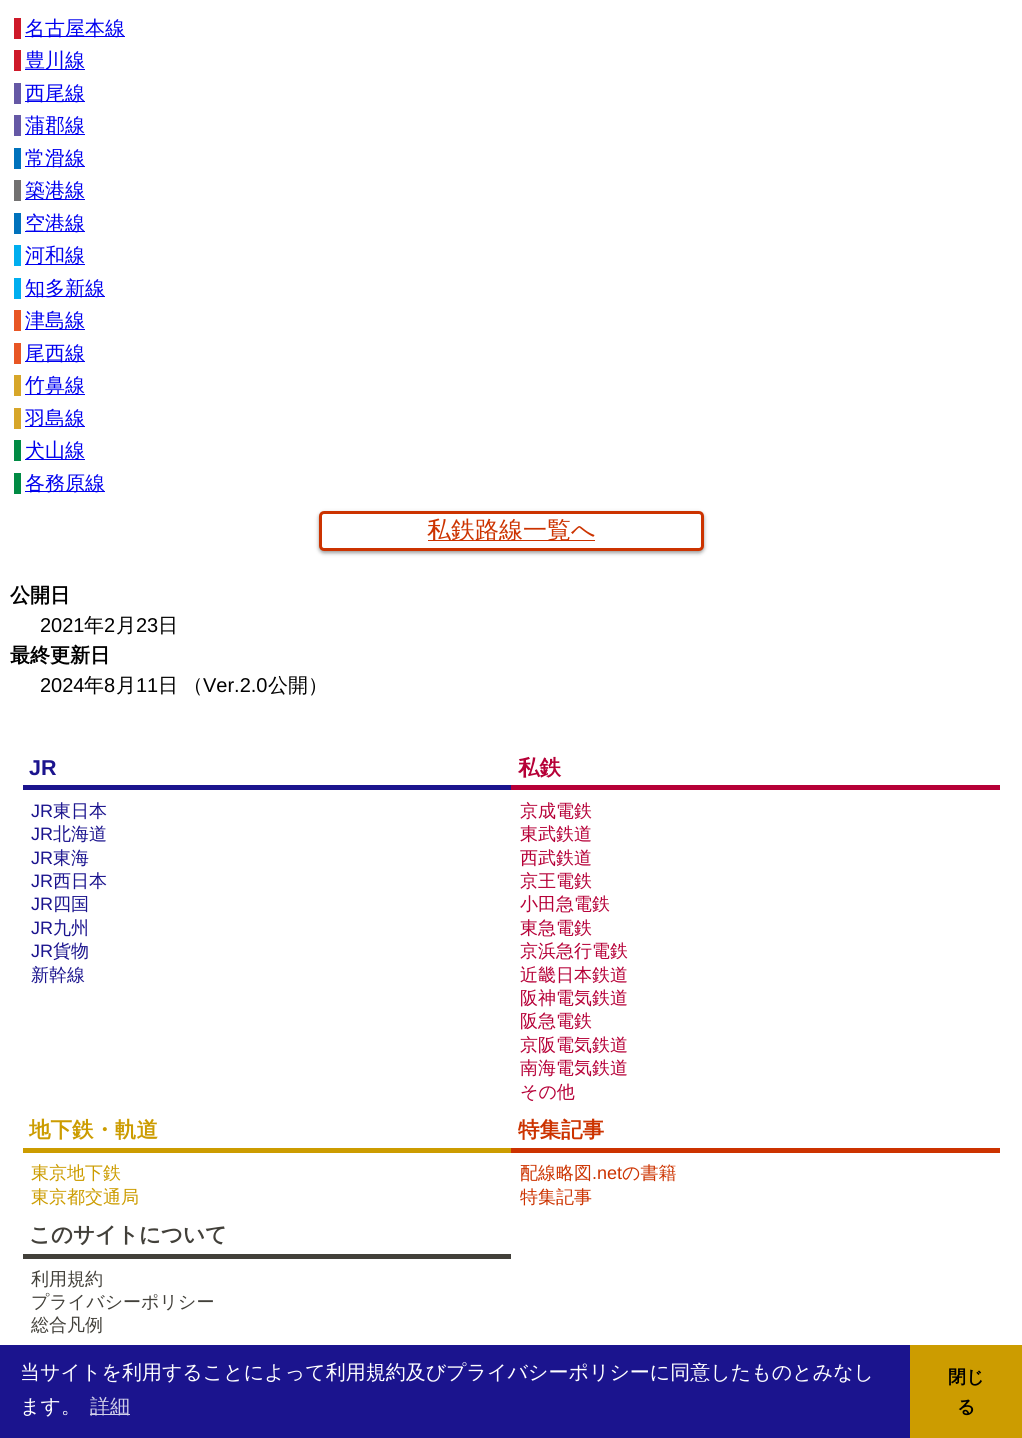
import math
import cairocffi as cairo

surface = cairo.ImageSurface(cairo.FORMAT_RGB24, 1022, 1438)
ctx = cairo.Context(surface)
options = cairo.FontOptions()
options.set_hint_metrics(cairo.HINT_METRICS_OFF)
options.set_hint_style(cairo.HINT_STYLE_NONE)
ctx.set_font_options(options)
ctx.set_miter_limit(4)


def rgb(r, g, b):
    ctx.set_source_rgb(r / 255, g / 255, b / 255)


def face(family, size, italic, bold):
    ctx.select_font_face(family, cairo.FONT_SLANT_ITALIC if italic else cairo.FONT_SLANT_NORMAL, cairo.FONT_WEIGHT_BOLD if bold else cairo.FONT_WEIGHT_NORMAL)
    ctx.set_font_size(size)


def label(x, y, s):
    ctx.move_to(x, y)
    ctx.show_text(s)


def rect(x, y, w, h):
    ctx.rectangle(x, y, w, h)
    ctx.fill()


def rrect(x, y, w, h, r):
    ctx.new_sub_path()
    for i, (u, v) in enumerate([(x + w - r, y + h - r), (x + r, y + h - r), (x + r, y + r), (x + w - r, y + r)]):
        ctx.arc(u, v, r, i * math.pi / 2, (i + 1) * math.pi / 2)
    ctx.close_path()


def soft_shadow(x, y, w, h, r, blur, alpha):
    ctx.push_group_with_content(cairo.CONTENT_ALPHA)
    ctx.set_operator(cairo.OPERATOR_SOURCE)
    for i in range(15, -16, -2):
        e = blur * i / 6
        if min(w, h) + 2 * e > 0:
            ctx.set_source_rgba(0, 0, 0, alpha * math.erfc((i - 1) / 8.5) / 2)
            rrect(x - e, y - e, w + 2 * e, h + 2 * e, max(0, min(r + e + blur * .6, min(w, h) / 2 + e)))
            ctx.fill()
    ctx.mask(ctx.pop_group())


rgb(255, 255, 255)
ctx.paint()
rgb(0, 0, 238)
rect(25, 36, 100, 1)
face('WenQuanYi Zen Hei Medium', 20, 0, 0)
label(25, 35, '名古屋本線')
rgb(206, 25, 41)
rect(14, 18, 7, 21)
rgb(0, 0, 238)
rect(25, 69, 60, 1)
label(25, 67, '豊川線')
rgb(206, 25, 41)
rect(14, 50, 7, 21)
rgb(0, 0, 238)
rect(25, 101, 60, 1)
label(25, 100, '西尾線')
rgb(101, 88, 165)
rect(14, 83, 7, 21)
rgb(0, 0, 238)
rect(25, 134, 60, 1)
label(25, 132, '蒲郡線')
rgb(101, 88, 165)
rect(14, 115, 7, 21)
rgb(0, 0, 238)
rect(25, 166, 60, 1)
label(25, 165, '常滑線')
rgb(0, 114, 188)
rect(14, 148, 7, 21)
rgb(0, 0, 238)
rect(25, 199, 60, 1)
label(25, 197, '築港線')
rgb(114, 113, 113)
rect(14, 180, 7, 21)
rgb(0, 0, 238)
rect(25, 231, 60, 1)
label(25, 230, '空港線')
rgb(0, 114, 188)
rect(14, 213, 7, 21)
rgb(0, 0, 238)
rect(25, 264, 60, 1)
label(25, 262, '河和線')
rgb(0, 174, 239)
rect(14, 245, 7, 21)
rgb(0, 0, 238)
rect(25, 296, 80, 1)
label(25, 295, '知多新線')
rgb(0, 174, 239)
rect(14, 278, 7, 21)
rgb(0, 0, 238)
rect(25, 329, 60, 1)
label(25, 327, '津島線')
rgb(232, 86, 36)
rect(14, 310, 7, 21)
rgb(0, 0, 238)
rect(25, 361, 60, 1)
label(25, 360, '尾西線')
rgb(232, 86, 36)
rect(14, 343, 7, 21)
rgb(0, 0, 238)
rect(25, 394, 60, 1)
label(25, 392, '竹鼻線')
rgb(215, 166, 41)
rect(14, 375, 7, 21)
rgb(0, 0, 238)
rect(25, 426, 60, 1)
label(25, 425, '羽島線')
rgb(215, 166, 41)
rect(14, 408, 7, 21)
rgb(0, 0, 238)
rect(25, 459, 60, 1)
label(25, 457, '犬山線')
rgb(1, 139, 68)
rect(14, 440, 7, 21)
rgb(0, 0, 238)
rect(25, 491, 80, 1)
label(25, 490, '各務原線')
rgb(1, 139, 68)
rect(14, 473, 7, 21)
rgb(0, 0, 0)
soft_shadow(319, 513, 385, 40, 5, 2, 0.4)
rgb(255, 255, 255)
rrect(320.5, 512.5, 382, 37, 3.5)
ctx.fill_preserve()
rgb(204, 51, 0)
ctx.set_line_width(3)
ctx.stroke()
rect(428, 540, 167, 1)
face('WenQuanYi Zen Hei Medium', 24, 0, 0)
label(427, 538, '私鉄路線一覧へ')
face('WenQuanYi Zen Hei', 20, 0, 1)
rgb(0, 0, 0)
label(10, 602, '公開日')
face('Liberation Sans', 20, 0, 0)
label(40, 632, '2021')
face('WenQuanYi Zen Hei Medium', 20, 0, 0)
label(84, 632, '年')
face('Liberation Sans', 20, 0, 0)
label(104, 632, '2')
face('WenQuanYi Zen Hei Medium', 20, 0, 0)
label(116, 632, '月')
face('Liberation Sans', 20, 0, 0)
label(136, 632, '23')
face('WenQuanYi Zen Hei Medium', 20, 0, 0)
label(158, 632, '日')
face('WenQuanYi Zen Hei', 20, 0, 1)
label(10, 662, '最終更新日')
face('Liberation Sans', 20, 0, 0)
label(40, 692, '2024')
face('WenQuanYi Zen Hei Medium', 20, 0, 0)
label(84, 692, '年')
face('Liberation Sans', 20, 0, 0)
label(104, 692, '8')
face('WenQuanYi Zen Hei Medium', 20, 0, 0)
label(116, 692, '月')
face('Liberation Sans', 20, 0, 0)
label(136, 692, '11')
face('WenQuanYi Zen Hei Medium', 20, 0, 0)
label(158, 692, '日')
label(183, 692, '（')
face('Liberation Sans', 20, 0, 0)
label(203, 692, 'Ver.2.0')
face('WenQuanYi Zen Hei Medium', 20, 0, 0)
label(268, 692, '公開）')
rgb(27, 20, 142)
rect(23, 785, 488, 5)
face('Liberation Sans', 21.5, 0, 1)
label(29, 775, 'JR')
face('Liberation Sans', 18, 0, 0)
label(31, 817, 'JR')
face('WenQuanYi Zen Hei Medium', 18, 0, 0)
label(53, 817, '東日本')
face('Liberation Sans', 18, 0, 0)
label(31, 840, 'JR')
face('WenQuanYi Zen Hei Medium', 18, 0, 0)
label(53, 840, '北海道')
face('Liberation Sans', 18, 0, 0)
label(31, 864, 'JR')
face('WenQuanYi Zen Hei Medium', 18, 0, 0)
label(53, 864, '東海')
face('Liberation Sans', 18, 0, 0)
label(31, 887, 'JR')
face('WenQuanYi Zen Hei Medium', 18, 0, 0)
label(53, 887, '西日本')
face('Liberation Sans', 18, 0, 0)
label(31, 910, 'JR')
face('WenQuanYi Zen Hei Medium', 18, 0, 0)
label(53, 910, '四国')
face('Liberation Sans', 18, 0, 0)
label(31, 934, 'JR')
face('WenQuanYi Zen Hei Medium', 18, 0, 0)
label(53, 934, '九州')
face('Liberation Sans', 18, 0, 0)
label(31, 957, 'JR')
face('WenQuanYi Zen Hei Medium', 18, 0, 0)
label(53, 957, '貨物')
label(31, 981, '新幹線')
rgb(182, 0, 55)
rect(511, 785, 489, 5)
face('WenQuanYi Zen Hei', 21.5, 0, 1)
label(518, 775, '私鉄')
face('WenQuanYi Zen Hei Medium', 18, 0, 0)
label(520, 817, '京成電鉄')
label(520, 840, '東武鉄道')
label(520, 864, '西武鉄道')
label(520, 887, '京王電鉄')
label(520, 910, '小田急電鉄')
label(520, 934, '東急電鉄')
label(520, 957, '京浜急行電鉄')
label(520, 981, '近畿日本鉄道')
label(520, 1004, '阪神電気鉄道')
label(520, 1027, '阪急電鉄')
label(520, 1051, '京阪電気鉄道')
label(520, 1074, '南海電気鉄道')
label(520, 1098, 'その他')
rgb(204, 156, 0)
rect(23, 1148, 488, 5)
face('WenQuanYi Zen Hei', 21.5, 0, 1)
label(29, 1137, '地下鉄・軌道')
face('WenQuanYi Zen Hei Medium', 18, 0, 0)
label(31, 1179, '東京地下鉄')
label(31, 1203, '東京都交通局')
rgb(204, 51, 0)
rect(511, 1148, 489, 5)
face('WenQuanYi Zen Hei', 21.5, 0, 1)
label(518, 1137, '特集記事')
face('WenQuanYi Zen Hei Medium', 18, 0, 0)
label(520, 1179, '配線略図')
face('Liberation Sans', 18, 0, 0)
label(592, 1179, '.net')
face('WenQuanYi Zen Hei Medium', 18, 0, 0)
label(622, 1179, 'の書籍')
label(520, 1203, '特集記事')
rgb(66, 64, 58)
rect(23, 1254, 488, 5)
face('WenQuanYi Zen Hei', 21.5, 0, 1)
label(29, 1242, 'このサイトについて')
face('WenQuanYi Zen Hei Medium', 18, 0, 0)
label(31, 1285, '利用規約')
label(31, 1308, 'プライバシーポリシー')
label(31, 1331, '総合凡例')
rgb(27, 20, 142)
rect(0, 1345, 910, 93)
face('WenQuanYi Zen Hei Medium', 20, 0, 0)
rgb(255, 255, 255)
label(20, 1379, '当サイトを利用することによって利用規約及びプライバシーポリシーに同意したものとみなし')
label(20, 1413, 'ます。')
rgb(209, 208, 232)
rect(90, 1414, 40, 1)
label(90, 1413, '詳細')
rgb(204, 156, 0)
rect(910, 1345, 112, 93)
face('WenQuanYi Zen Hei', 18, 0, 1)
rgb(0, 0, 0)
label(948, 1383, '閉じ')
label(957, 1413, 'る')
surface.write_to_png('render.png')
